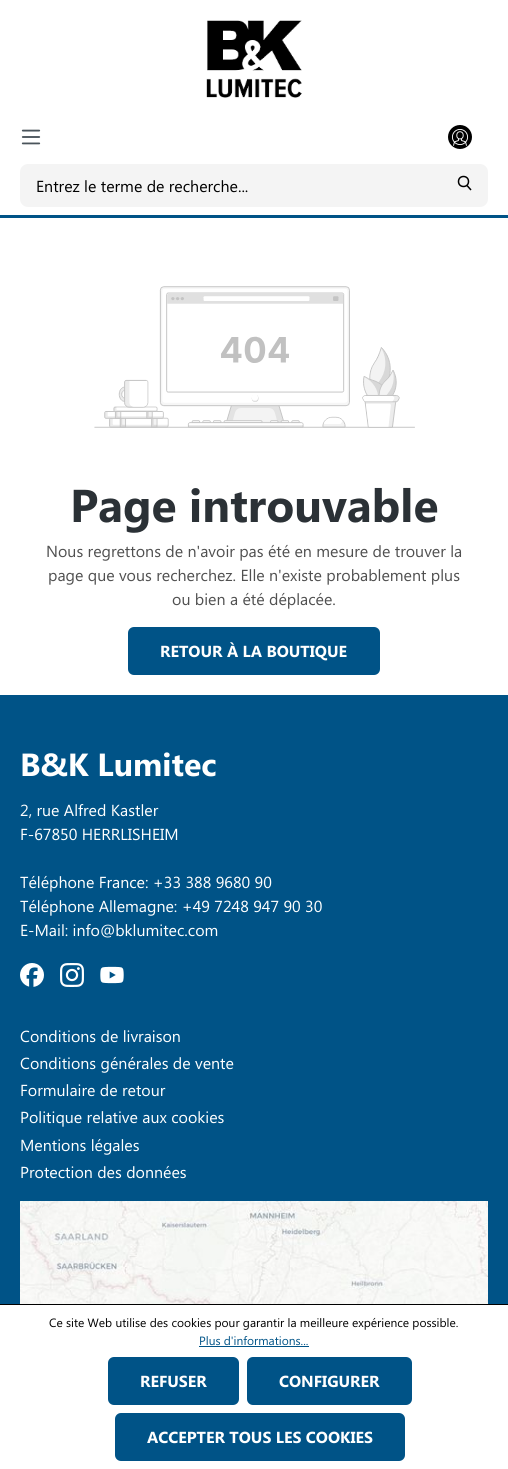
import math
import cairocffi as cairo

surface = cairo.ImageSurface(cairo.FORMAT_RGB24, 508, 1469)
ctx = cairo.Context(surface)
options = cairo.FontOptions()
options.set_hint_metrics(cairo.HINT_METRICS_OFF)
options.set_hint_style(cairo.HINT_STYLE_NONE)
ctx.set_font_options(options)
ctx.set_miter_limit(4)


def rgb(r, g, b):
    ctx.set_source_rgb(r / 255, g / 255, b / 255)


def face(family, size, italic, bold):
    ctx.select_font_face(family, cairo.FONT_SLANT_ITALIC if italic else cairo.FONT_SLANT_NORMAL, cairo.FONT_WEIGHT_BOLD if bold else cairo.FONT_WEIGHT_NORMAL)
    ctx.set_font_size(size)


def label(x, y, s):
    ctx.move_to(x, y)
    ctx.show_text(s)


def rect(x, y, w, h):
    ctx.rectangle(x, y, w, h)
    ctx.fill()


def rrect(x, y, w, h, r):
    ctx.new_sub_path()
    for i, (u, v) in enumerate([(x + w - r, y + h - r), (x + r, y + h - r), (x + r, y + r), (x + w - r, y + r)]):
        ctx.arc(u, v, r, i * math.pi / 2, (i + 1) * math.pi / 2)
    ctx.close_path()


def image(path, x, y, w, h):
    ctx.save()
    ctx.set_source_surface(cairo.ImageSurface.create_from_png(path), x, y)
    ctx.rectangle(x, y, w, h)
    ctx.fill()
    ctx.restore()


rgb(255, 255, 255)
ctx.paint()
rgb(0, 83, 135)
rect(0, 215, 508, 3)
image('image0.png', 206, 20, 96, 78)
image('image1.png', 21, 129, 20, 16)
image('image2.png', 448, 125, 24, 24)
rgb(244, 244, 244)
rrect(20, 164, 468, 43, 8)
ctx.fill()
face('Segoe UI', 16, 0, 0)
rgb(0, 0, 0)
label(36, 192, 'Entrez le terme de recherche...')
ctx.new_path()
ctx.arc(463.5, 181.5, 5, 0, 2 * math.pi)
ctx.set_line_width(1.5)
ctx.stroke()
ctx.new_path()
ctx.move_to(467, 185.5)
ctx.line_to(471, 190)
ctx.stroke()
image('image3.png', 94, 286, 321, 142)
face('Segoe UI', 46, 0, 1)
rgb(43, 49, 54)
label(70, 522, 'Page introuvable')
face('Segoe UI', 16, 0, 0)
rgb(80, 80, 80)
label(46, 557, 'Nous regrettons de n\'avoir pas été en mesure de trouver la')
label(48, 581, 'page que vous recherchez. Elle n\'existe probablement plus')
label(172, 605, 'ou bien a été déplacée.')
rgb(0, 83, 135)
rrect(128, 627, 252, 48, 6)
ctx.fill()
face('Segoe UI', 16, 0, 1)
rgb(255, 255, 255)
label(160, 657, 'RETOUR À LA BOUTIQUE')
rgb(0, 83, 135)
rect(0, 695, 508, 609)
face('Segoe UI', 32, 0, 1)
rgb(255, 255, 255)
label(20, 776, 'B&K Lumitec')
face('Segoe UI', 16, 0, 0)
label(20, 816, '2, rue Alfred Kastler')
label(20, 840, 'F-67850 HERRLISHEIM')
label(20, 888, 'Téléphone France: +33 388 9680 90')
label(20, 912, 'Téléphone Allemagne: +49 7248 947 90 30')
label(20, 936, 'E-Mail: info@bklumitec.com')
image('image4.png', 20, 963, 24, 24)
image('image5.png', 60, 963, 24, 24)
image('image6.png', 100, 966, 24, 18)
label(20, 1042, 'Conditions de livraison')
label(20, 1069, 'Conditions générales de vente')
label(20, 1096, 'Formulaire de retour')
label(20, 1123, 'Politique relative aux cookies')
label(20, 1151, 'Mentions légales')
label(20, 1178, 'Protection des données')
image('image7.png', 20, 1201, 468, 103)
rgb(0, 0, 0)
rect(0, 1304, 508, 1)
face('Segoe UI', 12, 0, 0)
label(49, 1327, 'Ce site Web utilise des cookies pour garantir la meilleure expérience possible.')
rgb(0, 83, 135)
label(199, 1345, 'Plus d\'informations...')
rect(199, 1346, 110, 1)
rrect(108, 1357, 131, 48, 6)
ctx.fill()
face('Segoe UI', 16, 0, 1)
rgb(255, 255, 255)
label(140, 1387, 'REFUSER')
rgb(0, 83, 135)
rrect(247, 1357, 165, 48, 6)
ctx.fill()
rgb(255, 255, 255)
label(279, 1387, 'CONFIGURER')
rgb(0, 83, 135)
rrect(115, 1413, 290, 48, 6)
ctx.fill()
rgb(255, 255, 255)
label(147, 1443, 'ACCEPTER TOUS LES COOKIES')
surface.write_to_png('render.png')
